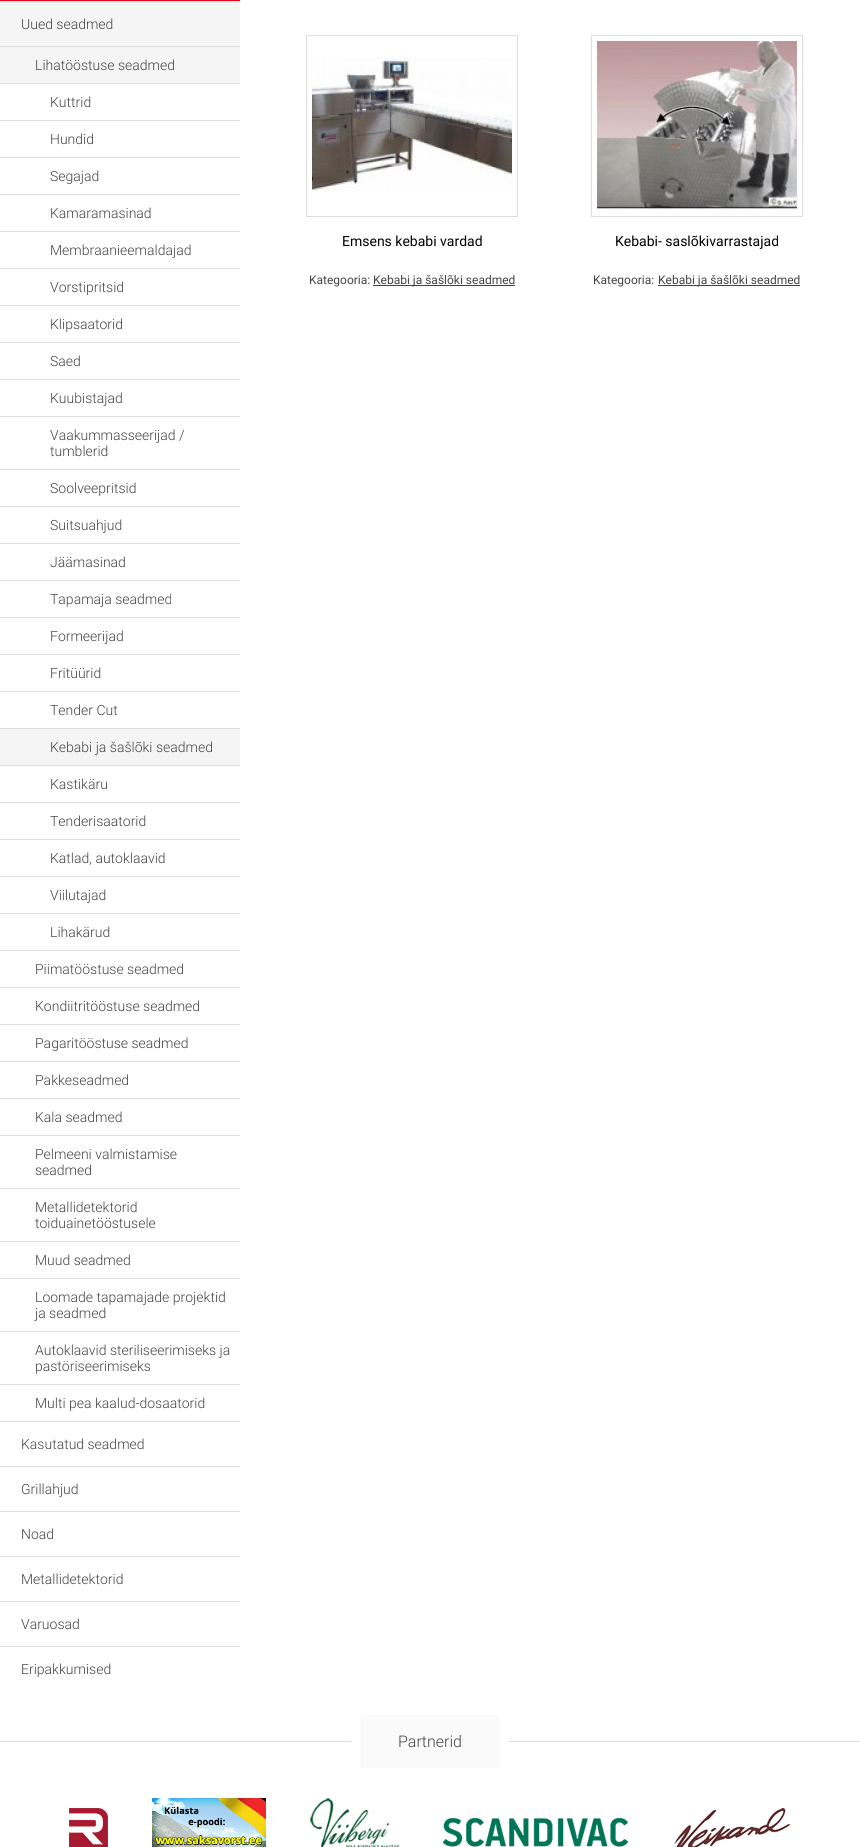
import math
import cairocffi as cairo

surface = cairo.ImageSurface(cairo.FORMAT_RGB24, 860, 1847)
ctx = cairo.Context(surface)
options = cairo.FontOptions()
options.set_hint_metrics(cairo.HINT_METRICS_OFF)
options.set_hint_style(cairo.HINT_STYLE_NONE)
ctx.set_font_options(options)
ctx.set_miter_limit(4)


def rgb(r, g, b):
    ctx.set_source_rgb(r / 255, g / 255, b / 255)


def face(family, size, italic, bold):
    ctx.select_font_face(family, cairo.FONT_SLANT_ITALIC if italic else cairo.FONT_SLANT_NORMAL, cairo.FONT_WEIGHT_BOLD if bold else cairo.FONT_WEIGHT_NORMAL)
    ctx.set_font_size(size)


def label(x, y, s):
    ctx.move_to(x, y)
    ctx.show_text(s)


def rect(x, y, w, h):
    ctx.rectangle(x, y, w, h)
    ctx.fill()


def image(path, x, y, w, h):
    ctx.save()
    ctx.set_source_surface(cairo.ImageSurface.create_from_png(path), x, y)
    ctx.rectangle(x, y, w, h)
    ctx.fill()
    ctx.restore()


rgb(255, 255, 255)
ctx.paint()
rgb(226, 11, 29)
rect(0, 0, 240, 1)
rgb(245, 245, 245)
rect(0, 2, 240, 44)
rgb(221, 221, 221)
rect(0, 1, 240, 1)
face('Roboto Light', 14, 0, 0)
rgb(68, 68, 68)
label(21, 29, 'Uued seadmed')
rgb(245, 245, 245)
rect(0, 47, 240, 36)
rgb(221, 221, 221)
rect(0, 46, 240, 1)
rgb(68, 68, 68)
label(35, 70, 'Lihatööstuse seadmed')
rgb(221, 221, 221)
rect(0, 83, 240, 1)
rgb(68, 68, 68)
label(50, 107, 'Kuttrid')
rgb(221, 221, 221)
rect(0, 120, 240, 1)
rgb(68, 68, 68)
label(50, 144, 'Hundid')
rgb(221, 221, 221)
rect(0, 157, 240, 1)
rgb(68, 68, 68)
label(50, 181, 'Segajad')
rgb(221, 221, 221)
rect(0, 194, 240, 1)
rgb(68, 68, 68)
label(50, 218, 'Kamaramasinad')
rgb(221, 221, 221)
rect(0, 231, 240, 1)
rgb(68, 68, 68)
label(50, 255, 'Membraanieemaldajad')
rgb(221, 221, 221)
rect(0, 268, 240, 1)
rgb(68, 68, 68)
label(50, 292, 'Vorstipritsid')
rgb(221, 221, 221)
rect(0, 305, 240, 1)
rgb(68, 68, 68)
label(50, 329, 'Klipsaatorid')
rgb(221, 221, 221)
rect(0, 342, 240, 1)
rgb(68, 68, 68)
label(50, 366, 'Saed')
rgb(221, 221, 221)
rect(0, 379, 240, 1)
rgb(68, 68, 68)
label(50, 403, 'Kuubistajad')
rgb(221, 221, 221)
rect(0, 416, 240, 1)
rgb(68, 68, 68)
label(50, 440, 'Vaakummasseerijad /')
label(50, 456, 'tumblerid')
rgb(221, 221, 221)
rect(0, 469, 240, 1)
rgb(68, 68, 68)
label(50, 493, 'Soolveepritsid')
rgb(221, 221, 221)
rect(0, 506, 240, 1)
rgb(68, 68, 68)
label(50, 530, 'Suitsuahjud')
rgb(221, 221, 221)
rect(0, 543, 240, 1)
rgb(68, 68, 68)
label(50, 567, 'Jäämasinad')
rgb(221, 221, 221)
rect(0, 580, 240, 1)
rgb(68, 68, 68)
label(50, 604, 'Tapamaja seadmed')
rgb(221, 221, 221)
rect(0, 617, 240, 1)
rgb(68, 68, 68)
label(50, 641, 'Formeerijad')
rgb(221, 221, 221)
rect(0, 654, 240, 1)
rgb(68, 68, 68)
label(50, 678, 'Fritüürid')
rgb(221, 221, 221)
rect(0, 691, 240, 1)
rgb(68, 68, 68)
label(50, 715, 'Tender Cut')
rgb(245, 245, 245)
rect(0, 729, 240, 36)
rgb(221, 221, 221)
rect(0, 728, 240, 1)
rgb(68, 68, 68)
label(50, 752, 'Kebabi ja šašlõki seadmed')
rgb(221, 221, 221)
rect(0, 765, 240, 1)
rgb(68, 68, 68)
label(50, 789, 'Kastikäru')
rgb(221, 221, 221)
rect(0, 802, 240, 1)
rgb(68, 68, 68)
label(50, 826, 'Tenderisaatorid')
rgb(221, 221, 221)
rect(0, 839, 240, 1)
rgb(68, 68, 68)
label(50, 863, 'Katlad, autoklaavid')
rgb(221, 221, 221)
rect(0, 876, 240, 1)
rgb(68, 68, 68)
label(50, 900, 'Viilutajad')
rgb(221, 221, 221)
rect(0, 913, 240, 1)
rgb(68, 68, 68)
label(50, 937, 'Lihakärud')
rgb(221, 221, 221)
rect(0, 950, 240, 1)
rgb(68, 68, 68)
label(35, 974, 'Piimatööstuse seadmed')
rgb(221, 221, 221)
rect(0, 987, 240, 1)
rgb(68, 68, 68)
label(35, 1011, 'Kondiitritööstuse seadmed')
rgb(221, 221, 221)
rect(0, 1024, 240, 1)
rgb(68, 68, 68)
label(35, 1048, 'Pagaritööstuse seadmed')
rgb(221, 221, 221)
rect(0, 1061, 240, 1)
rgb(68, 68, 68)
label(35, 1085, 'Pakkeseadmed')
rgb(221, 221, 221)
rect(0, 1098, 240, 1)
rgb(68, 68, 68)
label(35, 1122, 'Kala seadmed')
rgb(221, 221, 221)
rect(0, 1135, 240, 1)
rgb(68, 68, 68)
label(35, 1159, 'Pelmeeni valmistamise')
label(35, 1175, 'seadmed')
rgb(221, 221, 221)
rect(0, 1188, 240, 1)
rgb(68, 68, 68)
label(35, 1212, 'Metallidetektorid')
label(35, 1228, 'toiduainetööstusele')
rgb(221, 221, 221)
rect(0, 1241, 240, 1)
rgb(68, 68, 68)
label(35, 1265, 'Muud seadmed')
rgb(221, 221, 221)
rect(0, 1278, 240, 1)
rgb(68, 68, 68)
label(35, 1302, 'Loomade tapamajade projektid')
label(35, 1318, 'ja seadmed')
rgb(221, 221, 221)
rect(0, 1331, 240, 1)
rgb(68, 68, 68)
label(35, 1355, 'Autoklaavid steriliseerimiseks ja')
label(35, 1371, 'pastöriseerimiseks')
rgb(221, 221, 221)
rect(0, 1384, 240, 1)
rgb(68, 68, 68)
label(35, 1408, 'Multi pea kaalud-dosaatorid')
rgb(221, 221, 221)
rect(0, 1421, 240, 1)
rgb(68, 68, 68)
label(21, 1449, 'Kasutatud seadmed')
rgb(221, 221, 221)
rect(0, 1466, 240, 1)
rgb(68, 68, 68)
label(21, 1494, 'Grillahjud')
rgb(221, 221, 221)
rect(0, 1511, 240, 1)
rgb(68, 68, 68)
label(21, 1539, 'Noad')
rgb(221, 221, 221)
rect(0, 1556, 240, 1)
rgb(68, 68, 68)
label(21, 1584, 'Metallidetektorid')
rgb(221, 221, 221)
rect(0, 1601, 240, 1)
rgb(68, 68, 68)
label(21, 1629, 'Varuosad')
rgb(221, 221, 221)
rect(0, 1646, 240, 1)
rgb(68, 68, 68)
label(21, 1674, 'Eripakkumised')
ctx.rectangle(306.5, 35.5, 211, 181)
rgb(221, 221, 221)
ctx.set_line_width(1)
ctx.stroke()
image('image0.png', 312, 57, 200, 136)
face('Roboto', 14, 0, 0)
rgb(0, 0, 0)
label(342, 246, 'Emsens kebabi vardad')
face('Roboto', 12, 0, 0)
rgb(68, 68, 68)
label(309, 284, 'Kategooria:')
rect(373, 285, 142, 1)
label(373, 284, 'Kebabi ja šašlõki seadmed')
ctx.rectangle(591.5, 35.5, 211, 181)
rgb(221, 221, 221)
ctx.stroke()
image('image1.png', 597, 41, 200, 170)
face('Roboto', 14, 0, 0)
rgb(0, 0, 0)
label(615, 246, 'Kebabi- saslõkivarrastajad')
face('Roboto', 12, 0, 0)
rgb(68, 68, 68)
label(593, 284, 'Kategooria:')
rect(658, 285, 142, 1)
label(658, 284, 'Kebabi ja šašlõki seadmed')
rgb(221, 221, 221)
rect(0, 1741, 860, 1)
rgb(250, 250, 250)
ctx.rectangle(356, 1710, 148, 63)
ctx.fill_preserve()
rgb(255, 255, 255)
ctx.set_line_width(10)
ctx.stroke()
face('Roboto Light', 16, 0, 0)
rgb(68, 68, 68)
label(398, 1747, 'Partnerid')
image('image2.png', 69, 1808, 39, 39)
image('image3.png', 152, 1798, 114, 49)
image('image4.png', 310, 1798, 90, 49)
image('image5.png', 443, 1818, 185, 29)
image('image6.png', 674, 1808, 117, 39)
surface.write_to_png('render.png')
